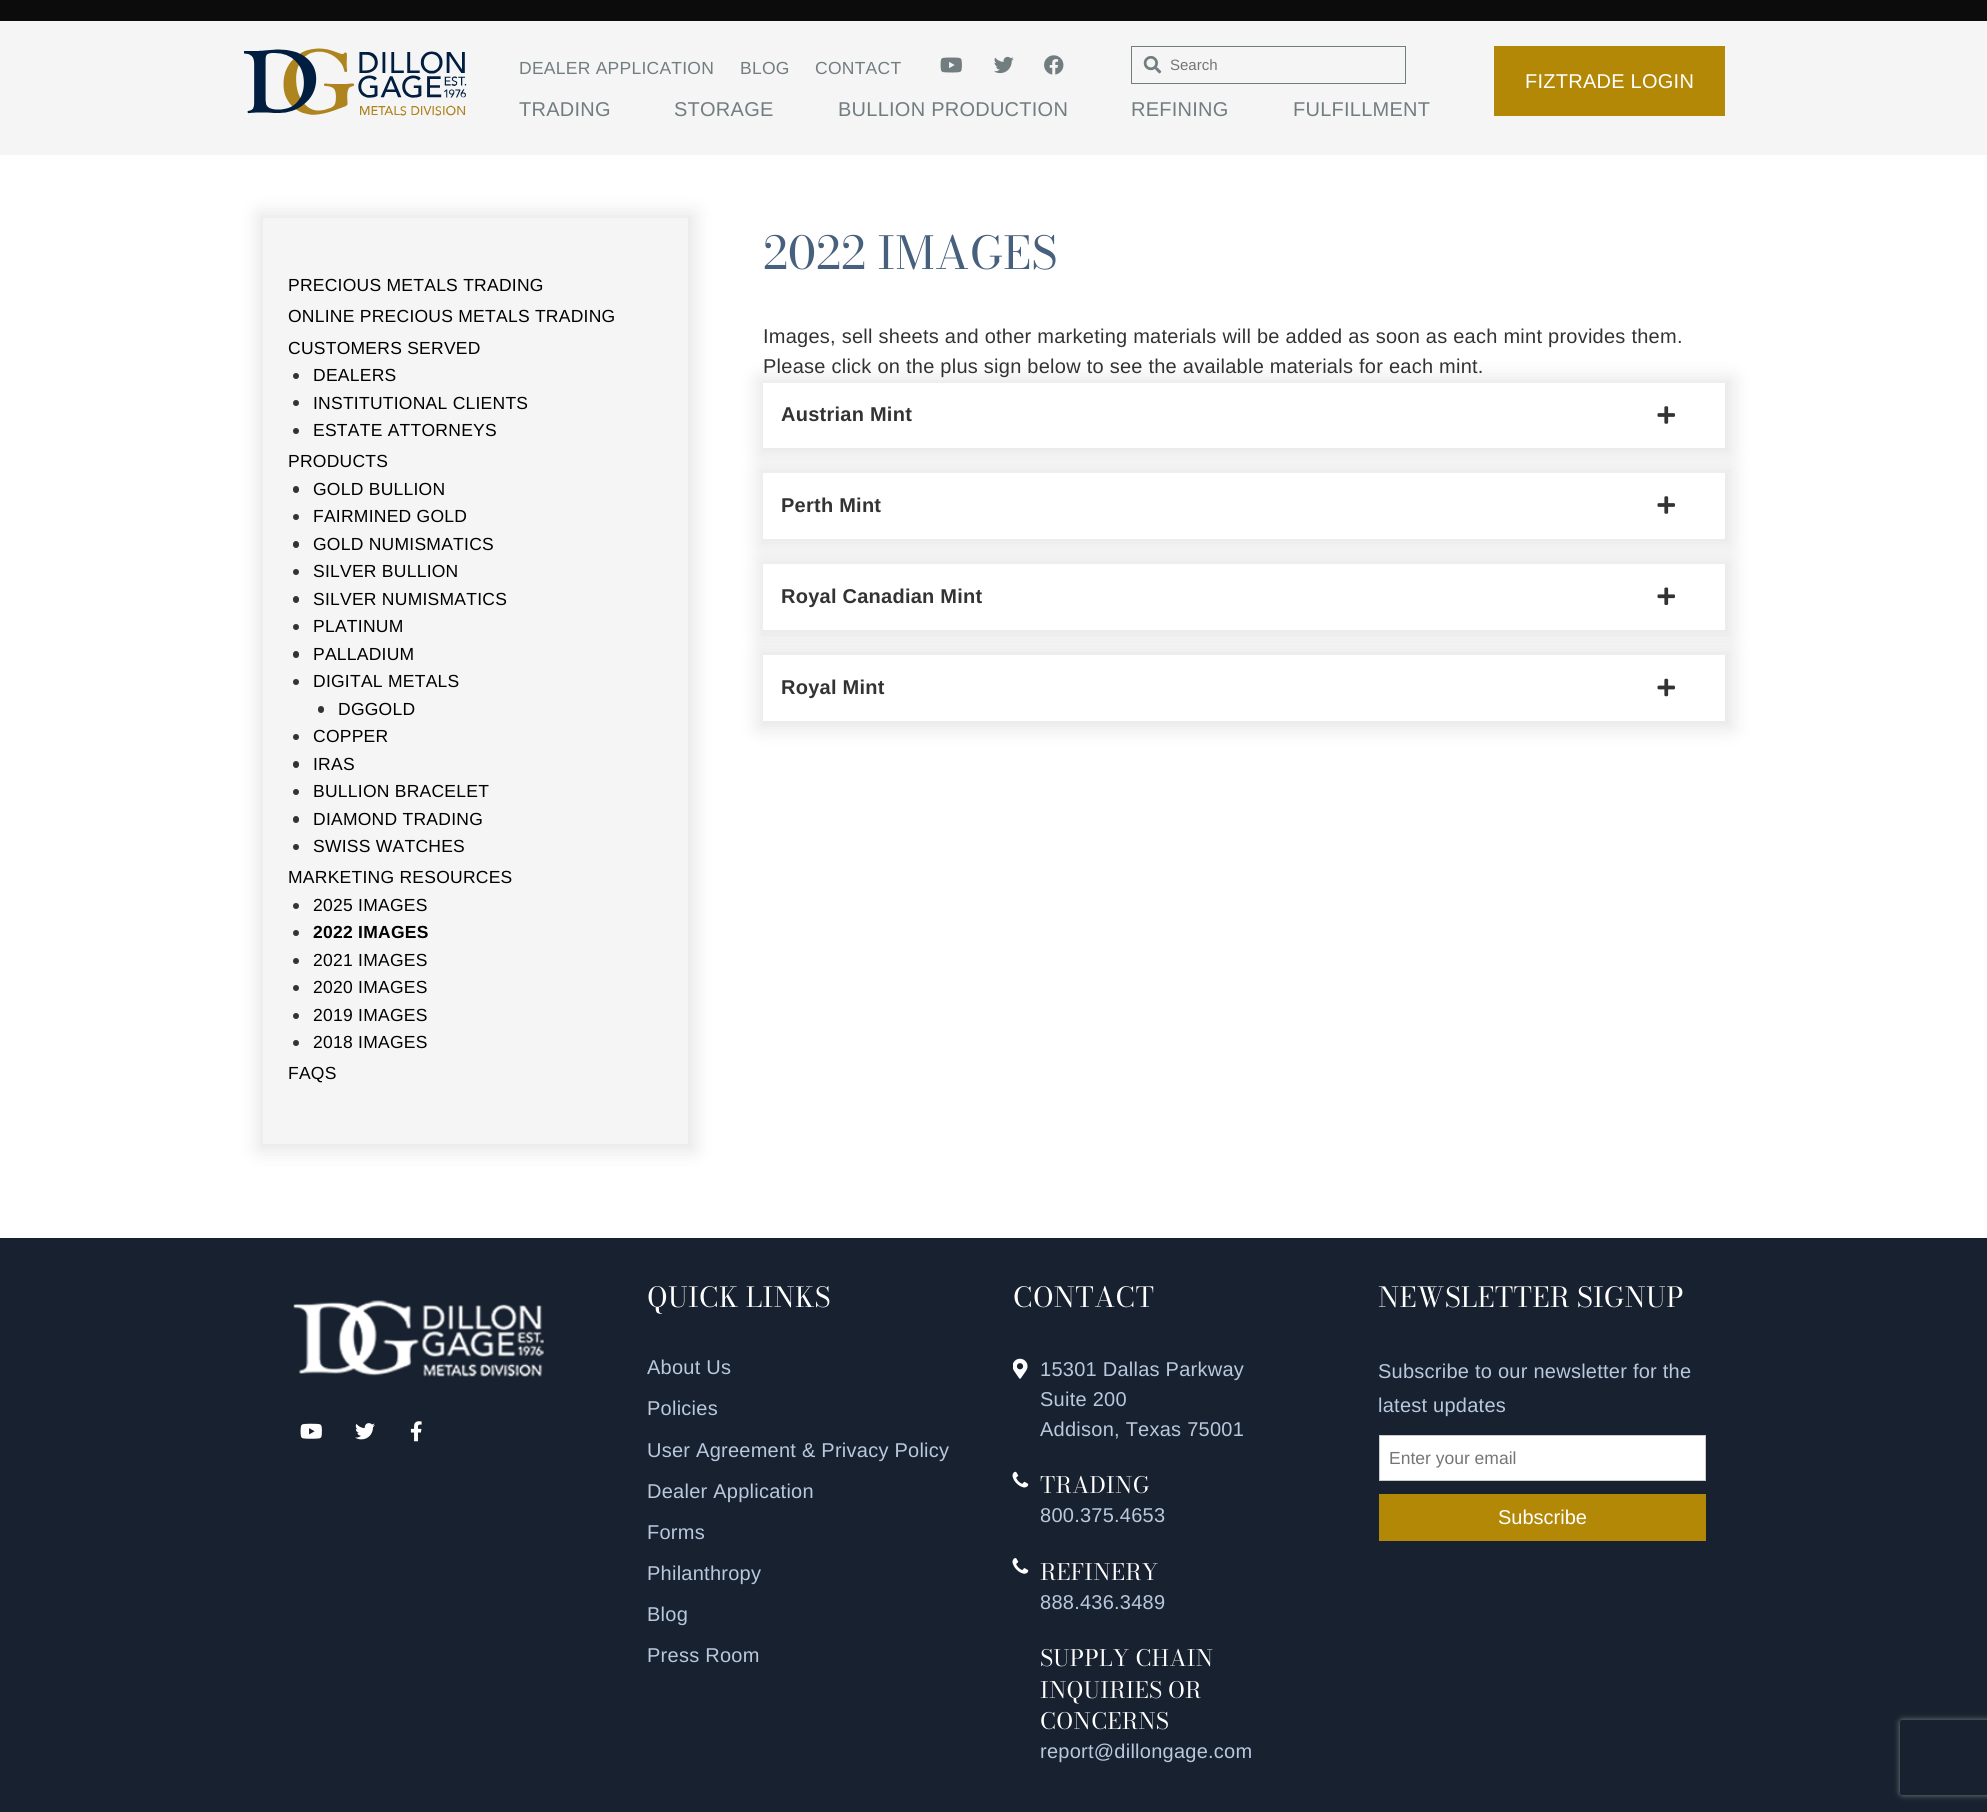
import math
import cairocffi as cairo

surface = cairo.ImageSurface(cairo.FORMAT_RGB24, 1987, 1812)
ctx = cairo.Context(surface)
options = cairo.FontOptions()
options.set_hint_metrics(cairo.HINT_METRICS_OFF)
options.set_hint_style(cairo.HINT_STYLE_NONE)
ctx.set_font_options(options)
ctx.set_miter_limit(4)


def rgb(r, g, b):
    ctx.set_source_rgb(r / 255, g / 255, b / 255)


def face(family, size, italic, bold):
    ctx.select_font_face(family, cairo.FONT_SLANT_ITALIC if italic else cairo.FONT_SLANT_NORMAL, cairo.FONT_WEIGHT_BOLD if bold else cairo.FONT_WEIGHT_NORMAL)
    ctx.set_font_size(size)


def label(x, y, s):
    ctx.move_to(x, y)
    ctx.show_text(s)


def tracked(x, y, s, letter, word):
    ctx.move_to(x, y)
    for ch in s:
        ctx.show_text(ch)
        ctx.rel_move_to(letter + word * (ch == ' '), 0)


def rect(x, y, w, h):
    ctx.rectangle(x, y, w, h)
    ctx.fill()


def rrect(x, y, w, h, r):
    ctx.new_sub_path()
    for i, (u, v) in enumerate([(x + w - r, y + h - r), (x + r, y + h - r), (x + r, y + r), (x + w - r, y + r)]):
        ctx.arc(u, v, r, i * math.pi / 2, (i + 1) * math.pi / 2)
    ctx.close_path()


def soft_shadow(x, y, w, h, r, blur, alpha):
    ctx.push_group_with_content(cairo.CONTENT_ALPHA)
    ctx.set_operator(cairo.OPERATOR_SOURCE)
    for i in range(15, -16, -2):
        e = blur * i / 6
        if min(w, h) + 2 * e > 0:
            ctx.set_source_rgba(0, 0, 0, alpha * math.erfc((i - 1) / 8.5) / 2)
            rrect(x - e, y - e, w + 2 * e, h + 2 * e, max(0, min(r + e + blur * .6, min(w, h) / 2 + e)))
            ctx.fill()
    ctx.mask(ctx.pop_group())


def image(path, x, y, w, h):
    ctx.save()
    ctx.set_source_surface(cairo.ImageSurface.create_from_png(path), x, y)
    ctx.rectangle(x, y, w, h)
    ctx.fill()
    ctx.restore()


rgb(255, 255, 255)
ctx.paint()
rgb(245, 245, 245)
rect(0, 21, 1987, 134)
rgb(12, 12, 12)
rect(0, 0, 1987, 21)
image('image0.png', 244, 48, 223, 68)
face('Liberation Sans', 17.5, 0, 0)
rgb(114, 125, 128)
tracked(519, 74, 'DEALER APPLICATION', 0.25, 0)
tracked(740, 74, 'BLOG', 0.25, 0)
tracked(815, 74, 'CONTACT', 0.25, 0)
image('image1.png', 940, 57, 22, 16)
image('image2.png', 994, 56, 20, 18)
image('image3.png', 1044, 55, 20, 20)
ctx.rectangle(1131.5, 46.5, 274, 37)
ctx.set_line_width(1)
ctx.stroke()
image('image4.png', 1143, 55, 19, 19)
face('Liberation Sans', 15, 0, 0)
rgb(117, 117, 117)
label(1170, 70, 'Search')
face('Liberation Sans', 20, 0, 0)
rgb(114, 125, 128)
tracked(519, 116, 'TRADING', 0.25, 0)
tracked(674, 116, 'STORAGE', 0.25, 0)
tracked(838, 116, 'BULLION PRODUCTION', 0.25, 0)
tracked(1131, 116, 'REFINING', 0.25, 0)
tracked(1293, 116, 'FULFILLMENT', 0.25, 0)
rgb(179, 136, 6)
rect(1494, 46, 231, 70)
rgb(255, 255, 255)
tracked(1525, 88, 'FIZTRADE LOGIN', 0.25, 0)
rgb(0, 0, 0)
soft_shadow(258, 213, 437, 938, 0, 9.5, 0.1)
rgb(245, 245, 245)
rect(263, 218, 425, 926)
face('Liberation Sans', 17.5, 0, 0)
rgb(0, 0, 0)
tracked(288, 291, 'PRECIOUS METALS TRADING', 0.25, 0)
tracked(288, 322, 'ONLINE PRECIOUS METALS TRADING', 0.25, 0)
tracked(288, 354, 'CUSTOMERS SERVED', 0.25, 0)
rgb(51, 51, 51)
ctx.new_path()
ctx.arc(296, 376, 3, 0, 2 * math.pi)
ctx.fill()
rgb(0, 0, 0)
tracked(313, 381, 'DEALERS', 0.25, 0)
rgb(51, 51, 51)
ctx.new_path()
ctx.arc(296, 403, 3, 0, 2 * math.pi)
ctx.fill()
rgb(0, 0, 0)
tracked(313, 409, 'INSTITUTIONAL CLIENTS', 0.25, 0)
rgb(51, 51, 51)
ctx.new_path()
ctx.arc(296, 431, 3, 0, 2 * math.pi)
ctx.fill()
rgb(0, 0, 0)
tracked(313, 436, 'ESTATE ATTORNEYS', 0.25, 0)
tracked(288, 467, 'PRODUCTS', 0.25, 0)
rgb(51, 51, 51)
rrect(293, 486, 6, 7, 3)
ctx.fill()
rgb(0, 0, 0)
tracked(313, 495, 'GOLD BULLION', 0.25, 0)
rgb(51, 51, 51)
ctx.new_path()
ctx.arc(296, 517, 3, 0, 2 * math.pi)
ctx.fill()
rgb(0, 0, 0)
tracked(313, 522, 'FAIRMINED GOLD', 0.25, 0)
rgb(51, 51, 51)
rrect(293, 541, 6, 7, 3)
ctx.fill()
rgb(0, 0, 0)
tracked(313, 550, 'GOLD NUMISMATICS', 0.25, 0)
rgb(51, 51, 51)
ctx.new_path()
ctx.arc(296, 572, 3, 0, 2 * math.pi)
ctx.fill()
rgb(0, 0, 0)
tracked(313, 577, 'SILVER BULLION', 0.25, 0)
rgb(51, 51, 51)
rrect(293, 596, 6, 7, 3)
ctx.fill()
rgb(0, 0, 0)
tracked(313, 605, 'SILVER NUMISMATICS', 0.25, 0)
rgb(51, 51, 51)
ctx.new_path()
ctx.arc(296, 627, 3, 0, 2 * math.pi)
ctx.fill()
rgb(0, 0, 0)
tracked(313, 632, 'PLATINUM', 0.25, 0)
rgb(51, 51, 51)
rrect(293, 651, 6, 7, 3)
ctx.fill()
rgb(0, 0, 0)
tracked(313, 660, 'PALLADIUM', 0.25, 0)
rgb(51, 51, 51)
ctx.new_path()
ctx.arc(296, 682, 3, 0, 2 * math.pi)
ctx.fill()
rgb(0, 0, 0)
tracked(313, 687, 'DIGITAL METALS', 0.25, 0)
rgb(51, 51, 51)
rrect(318, 706, 6, 7, 3)
ctx.fill()
rgb(0, 0, 0)
tracked(338, 715, 'DGGOLD', 0.25, 0)
rgb(51, 51, 51)
ctx.new_path()
ctx.arc(296, 737, 3, 0, 2 * math.pi)
ctx.fill()
rgb(0, 0, 0)
tracked(313, 742, 'COPPER', 0.25, 0)
rgb(51, 51, 51)
rrect(293, 761, 6, 7, 3)
ctx.fill()
rgb(0, 0, 0)
tracked(313, 770, 'IRAS', 0.25, 0)
rgb(51, 51, 51)
ctx.new_path()
ctx.arc(296, 792, 3, 0, 2 * math.pi)
ctx.fill()
rgb(0, 0, 0)
tracked(313, 797, 'BULLION BRACELET', 0.25, 0)
rgb(51, 51, 51)
rrect(293, 816, 6, 7, 3)
ctx.fill()
rgb(0, 0, 0)
tracked(313, 825, 'DIAMOND TRADING', 0.25, 0)
rgb(51, 51, 51)
ctx.new_path()
ctx.arc(296, 847, 3, 0, 2 * math.pi)
ctx.fill()
rgb(0, 0, 0)
tracked(313, 852, 'SWISS WATCHES', 0.25, 0)
tracked(288, 883, 'MARKETING RESOURCES', 0.25, 0)
rgb(51, 51, 51)
ctx.new_path()
ctx.arc(296, 906, 3, 0, 2 * math.pi)
ctx.fill()
rgb(0, 0, 0)
tracked(313, 911, '2025 IMAGES', 0.25, 0)
rgb(51, 51, 51)
ctx.new_path()
ctx.arc(296, 933, 3, 0, 2 * math.pi)
ctx.fill()
face('Liberation Sans', 17.5, 0, 1)
rgb(0, 0, 0)
tracked(313, 938, '2022 IMAGES', 0.25, 0)
rgb(51, 51, 51)
ctx.new_path()
ctx.arc(296, 961, 3, 0, 2 * math.pi)
ctx.fill()
face('Liberation Sans', 17.5, 0, 0)
rgb(0, 0, 0)
tracked(313, 966, '2021 IMAGES', 0.25, 0)
rgb(51, 51, 51)
ctx.new_path()
ctx.arc(296, 988, 3, 0, 2 * math.pi)
ctx.fill()
rgb(0, 0, 0)
tracked(313, 993, '2020 IMAGES', 0.25, 0)
rgb(51, 51, 51)
ctx.new_path()
ctx.arc(296, 1016, 3, 0, 2 * math.pi)
ctx.fill()
rgb(0, 0, 0)
tracked(313, 1021, '2019 IMAGES', 0.25, 0)
rgb(51, 51, 51)
ctx.new_path()
ctx.arc(296, 1043, 3, 0, 2 * math.pi)
ctx.fill()
rgb(0, 0, 0)
tracked(313, 1048, '2018 IMAGES', 0.25, 0)
tracked(288, 1079, 'FAQS', 0.25, 0)
face('Bodoni Moda', 45, 0, 0)
rgb(71, 96, 126)
tracked(763, 269, '2022 IMAGES', 0.25, 0)
face('Liberation Sans', 20, 0, 0)
rgb(51, 51, 51)
tracked(763, 343, 'Images, sell sheets and other marketing materials will be added as soon as each mint provides them.', 0.25, 0)
tracked(763, 373, 'Please click on the plus sign below to see the available materials for each mint.', 0.25, 0)
ctx.save()
ctx.set_fill_rule(cairo.FILL_RULE_EVEN_ODD)
ctx.new_path()
ctx.move_to(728, 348)
ctx.line_to(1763, 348)
ctx.line_to(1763, 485)
ctx.line_to(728, 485)
ctx.close_path()
ctx.move_to(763, 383)
ctx.line_to(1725, 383)
ctx.line_to(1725, 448)
ctx.line_to(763, 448)
ctx.close_path()
ctx.clip()
rgb(0, 0, 0)
soft_shadow(758, 378, 975, 77, 0, 9.5, 0.1)
ctx.restore()
face('Liberation Sans', 20, 0, 1)
tracked(781, 421, 'Austrian Mint', 0.25, 0)
image('image5.png', 1657, 406, 18, 18)
ctx.save()
ctx.set_fill_rule(cairo.FILL_RULE_EVEN_ODD)
ctx.new_path()
ctx.move_to(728, 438)
ctx.line_to(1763, 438)
ctx.line_to(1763, 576)
ctx.line_to(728, 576)
ctx.close_path()
ctx.move_to(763, 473)
ctx.line_to(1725, 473)
ctx.line_to(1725, 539)
ctx.line_to(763, 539)
ctx.close_path()
ctx.clip()
rgb(0, 0, 0)
soft_shadow(758, 468, 975, 78, 0, 9.5, 0.1)
ctx.restore()
tracked(781, 512, 'Perth Mint', 0.25, 0)
image('image5.png', 1657, 496, 18, 18)
ctx.save()
ctx.set_fill_rule(cairo.FILL_RULE_EVEN_ODD)
ctx.new_path()
ctx.move_to(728, 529)
ctx.line_to(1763, 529)
ctx.line_to(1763, 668)
ctx.line_to(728, 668)
ctx.close_path()
ctx.move_to(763, 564)
ctx.line_to(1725, 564)
ctx.line_to(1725, 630)
ctx.line_to(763, 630)
ctx.close_path()
ctx.clip()
rgb(0, 0, 0)
soft_shadow(758, 559, 975, 79, 0, 9.5, 0.1)
ctx.restore()
tracked(781, 603, 'Royal Canadian Mint', 0.25, 0)
image('image6.png', 1657, 587, 18, 18)
ctx.save()
ctx.set_fill_rule(cairo.FILL_RULE_EVEN_ODD)
ctx.new_path()
ctx.move_to(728, 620)
ctx.line_to(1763, 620)
ctx.line_to(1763, 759)
ctx.line_to(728, 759)
ctx.close_path()
ctx.move_to(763, 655)
ctx.line_to(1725, 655)
ctx.line_to(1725, 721)
ctx.line_to(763, 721)
ctx.close_path()
ctx.clip()
rgb(0, 0, 0)
soft_shadow(758, 650, 975, 79, 0, 9.5, 0.1)
ctx.restore()
tracked(781, 694, 'Royal Mint', 0.25, 0)
image('image7.png', 1657, 678, 18, 19)
rgb(23, 33, 47)
rect(0, 1238, 1987, 574)
image('image8.png', 293, 1300, 251, 77)
image('image9.png', 300, 1423, 22, 16)
image('image10.png', 355, 1423, 20, 17)
image('image11.png', 410, 1421, 12, 21)
face('Bodoni Moda', 27.5, 0, 0)
rgb(255, 255, 255)
tracked(647, 1307, 'QUICK LINKS', 0.25, 0)
face('Liberation Sans', 20, 0, 0)
rgb(185, 200, 221)
tracked(647, 1374, 'About Us', 0.25, 0)
tracked(647, 1415, 'Policies', 0.25, 0)
tracked(647, 1457, 'User Agreement & Privacy Policy', 0.25, 0)
tracked(647, 1498, 'Dealer Application', 0.25, 0)
tracked(647, 1539, 'Forms', 0.25, 0)
tracked(647, 1580, 'Philanthropy', 0.25, 0)
tracked(647, 1621, 'Blog', 0.25, 0)
tracked(647, 1662, 'Press Room', 0.25, 0)
face('Bodoni Moda', 27.5, 0, 0)
rgb(255, 255, 255)
tracked(1013, 1307, 'CONTACT', 0.25, 0)
image('image12.png', 1013, 1358, 15, 21)
face('Liberation Sans', 20, 0, 0)
rgb(185, 200, 221)
tracked(1040, 1376, '15301 Dallas Parkway', 0.25, 0)
tracked(1040, 1406, 'Suite 200', 0.25, 0)
tracked(1040, 1436, 'Addison, Texas 75001', 0.25, 0)
image('image13.png', 1012, 1471, 17, 17)
face('Bodoni Moda', 22.5, 0, 0)
rgb(255, 255, 255)
tracked(1040, 1493, 'TRADING', 0.25, 0)
face('Liberation Sans', 20, 0, 0)
rgb(185, 200, 221)
tracked(1040, 1522, '800.375.4653', 0.25, 0)
image('image14.png', 1012, 1558, 17, 16)
face('Bodoni Moda', 22.5, 0, 0)
rgb(255, 255, 255)
tracked(1040, 1580, 'REFINERY', 0.25, 0)
face('Liberation Sans', 20, 0, 0)
rgb(185, 200, 221)
tracked(1040, 1609, '888.436.3489', 0.25, 0)
face('Bodoni Moda', 22.5, 0, 0)
rgb(255, 255, 255)
tracked(1040, 1666, 'SUPPLY CHAIN', 0.25, 0)
tracked(1040, 1698, 'INQUIRIES OR', 0.25, 0)
tracked(1040, 1729, 'CONCERNS', 0.25, 0)
face('Liberation Sans', 20, 0, 0)
rgb(185, 200, 221)
tracked(1040, 1758, 'report@dillongage.com', 0.25, 0)
face('Bodoni Moda', 27.5, 0, 0)
rgb(255, 255, 255)
tracked(1378, 1307, 'NEWSLETTER SIGNUP', 0.25, 0)
face('Liberation Sans', 20, 0, 0)
rgb(185, 200, 221)
tracked(1378, 1378, 'Subscribe to our newsletter for the', 0.25, 0)
tracked(1378, 1412, 'latest updates', 0.25, 0)
rgb(255, 255, 255)
ctx.rectangle(1379.5, 1435.5, 326, 45)
ctx.fill_preserve()
rgb(204, 204, 204)
ctx.stroke()
face('Liberation Sans', 17.5, 0, 0)
rgb(117, 117, 117)
label(1389, 1464, 'Enter your email')
rgb(179, 136, 6)
rect(1379, 1494, 327, 47)
face('Liberation Sans', 20, 0, 0)
rgb(255, 255, 255)
label(1498, 1524, 'Subscribe')
ctx.save()
ctx.set_fill_rule(cairo.FILL_RULE_EVEN_ODD)
ctx.new_path()
ctx.move_to(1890, 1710)
ctx.line_to(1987, 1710)
ctx.line_to(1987, 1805)
ctx.line_to(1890, 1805)
ctx.close_path()
ctx.move_to(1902.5, 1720)
ctx.line_to(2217.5, 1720)
ctx.curve_to(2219, 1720, 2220, 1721, 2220, 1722.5)
ctx.line_to(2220, 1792.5)
ctx.curve_to(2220, 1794, 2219, 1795, 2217.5, 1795)
ctx.line_to(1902.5, 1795)
ctx.curve_to(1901, 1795, 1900, 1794, 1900, 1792.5)
ctx.line_to(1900, 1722.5)
ctx.curve_to(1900, 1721, 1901, 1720, 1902.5, 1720)
ctx.close_path()
ctx.clip()
rgb(128, 128, 128)
soft_shadow(1900, 1720, 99, 75, 2.5, 3, 1)
ctx.restore()
surface.write_to_png('render.png')
